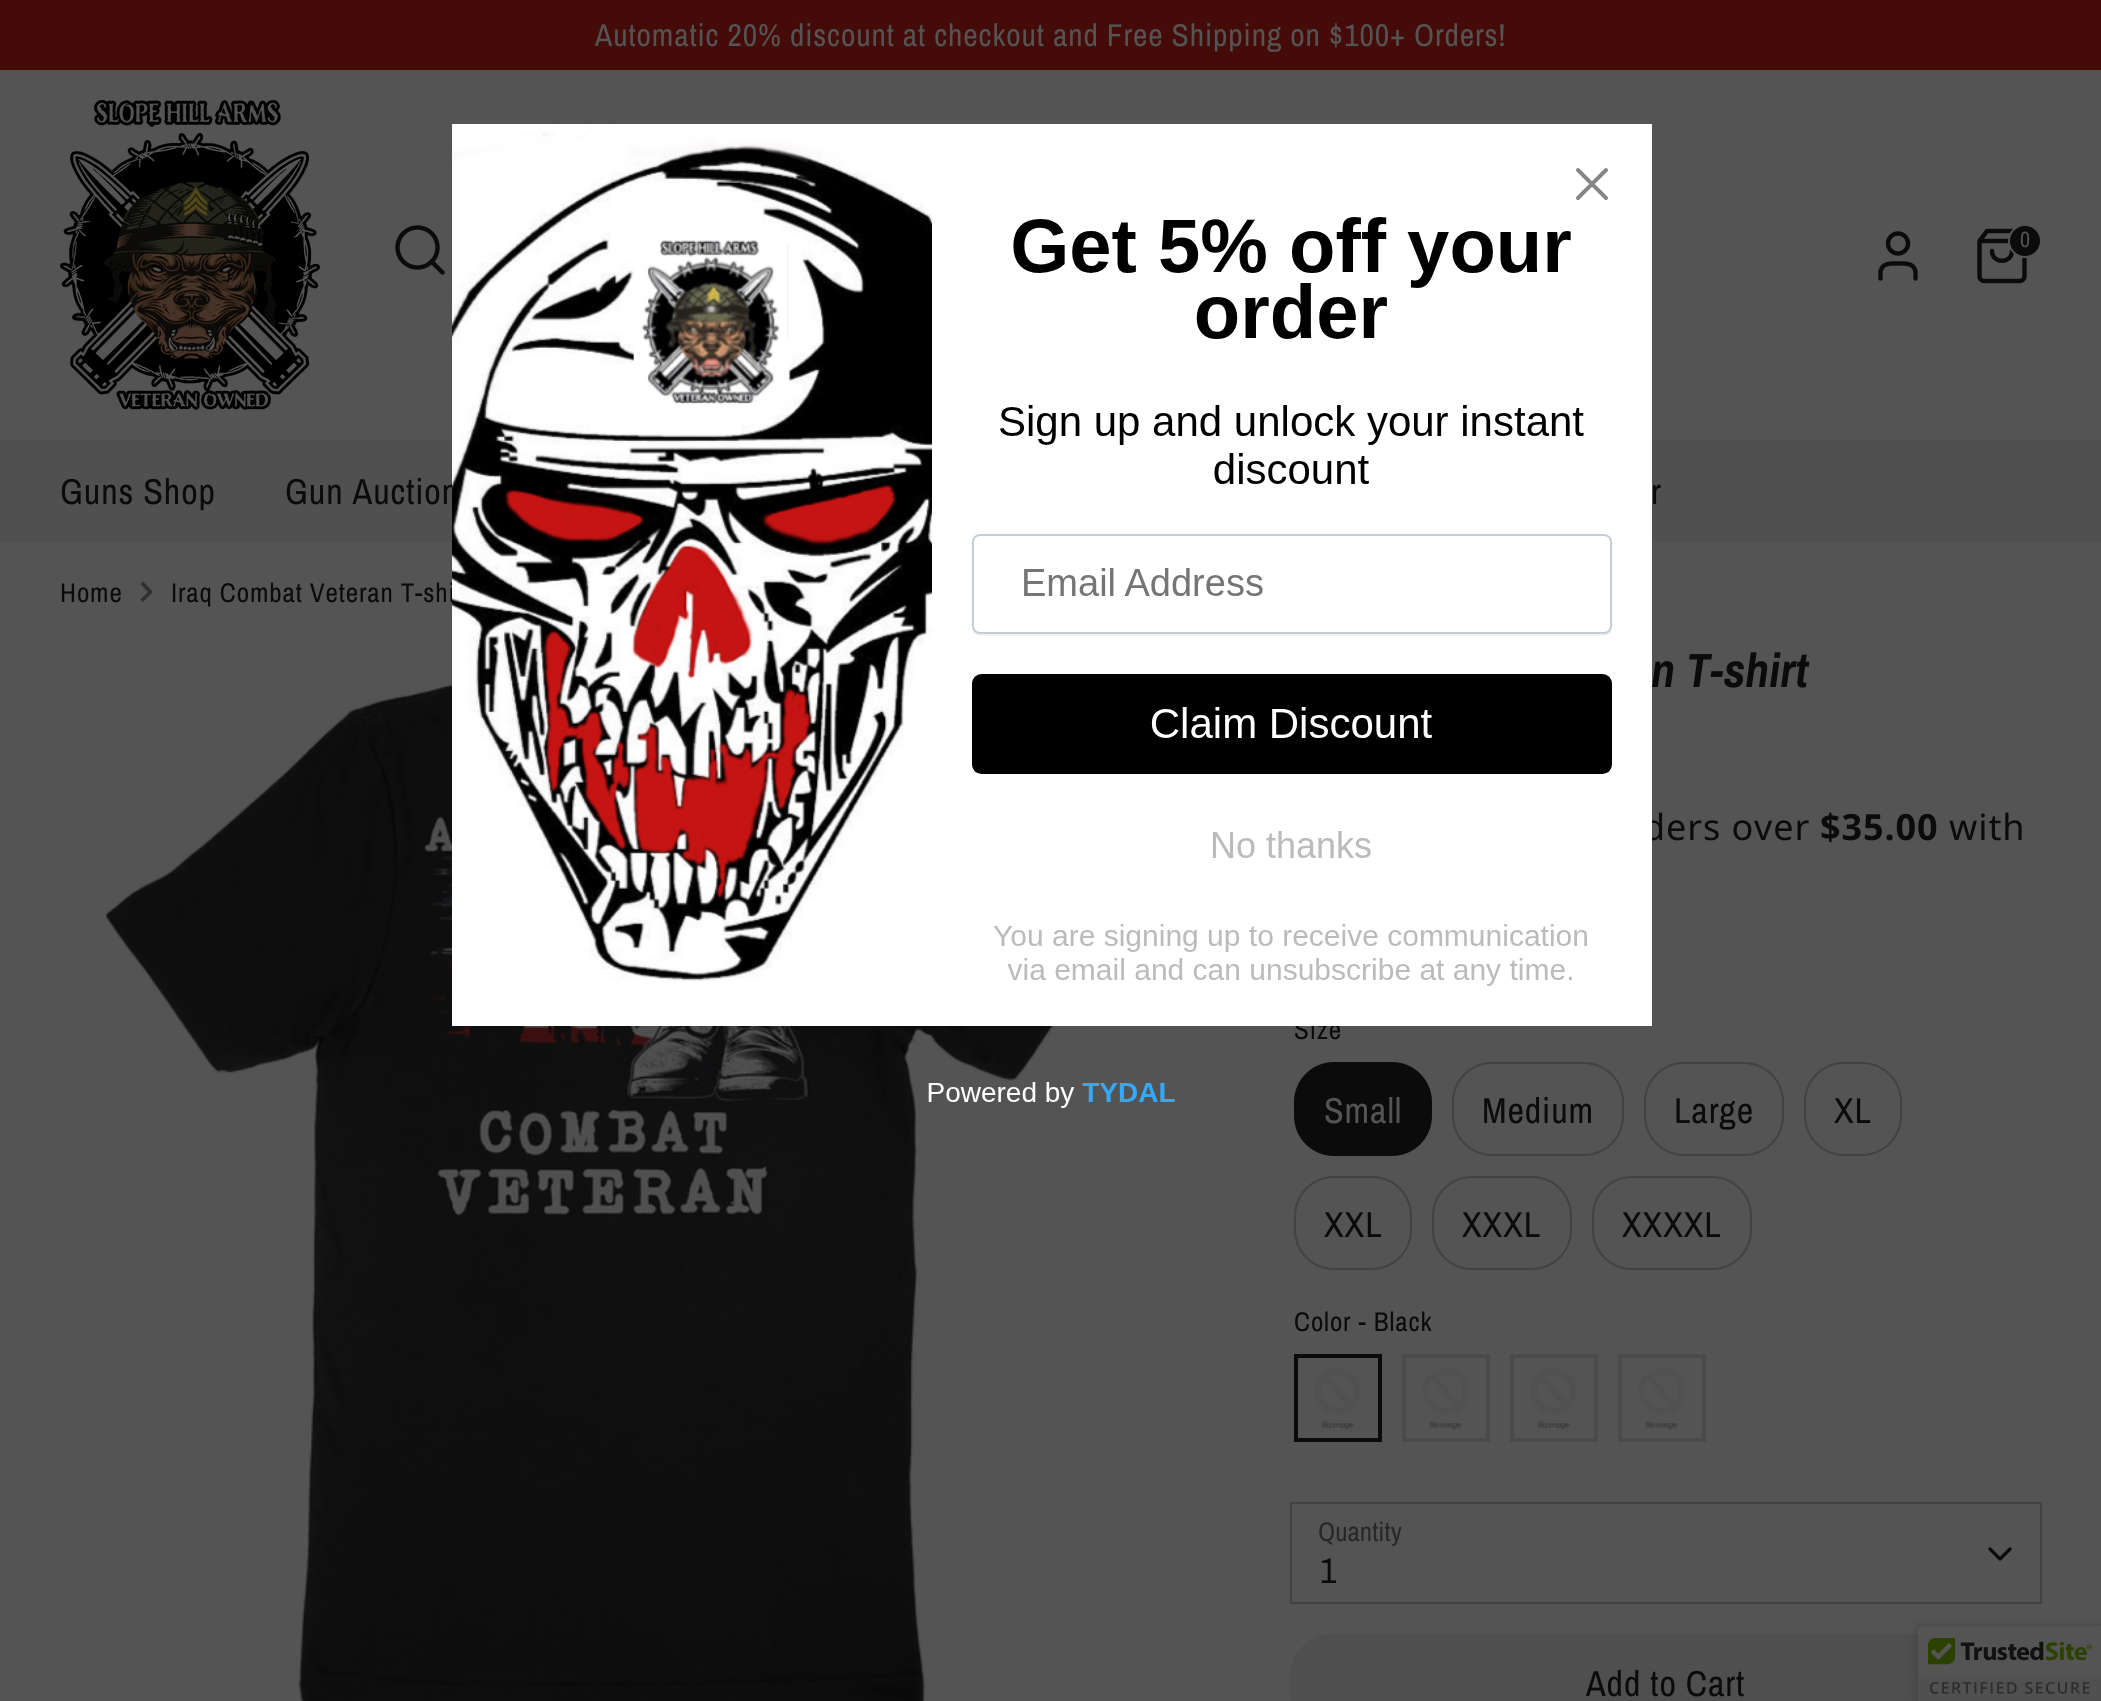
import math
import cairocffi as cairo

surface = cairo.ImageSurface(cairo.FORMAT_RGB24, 2101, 1701)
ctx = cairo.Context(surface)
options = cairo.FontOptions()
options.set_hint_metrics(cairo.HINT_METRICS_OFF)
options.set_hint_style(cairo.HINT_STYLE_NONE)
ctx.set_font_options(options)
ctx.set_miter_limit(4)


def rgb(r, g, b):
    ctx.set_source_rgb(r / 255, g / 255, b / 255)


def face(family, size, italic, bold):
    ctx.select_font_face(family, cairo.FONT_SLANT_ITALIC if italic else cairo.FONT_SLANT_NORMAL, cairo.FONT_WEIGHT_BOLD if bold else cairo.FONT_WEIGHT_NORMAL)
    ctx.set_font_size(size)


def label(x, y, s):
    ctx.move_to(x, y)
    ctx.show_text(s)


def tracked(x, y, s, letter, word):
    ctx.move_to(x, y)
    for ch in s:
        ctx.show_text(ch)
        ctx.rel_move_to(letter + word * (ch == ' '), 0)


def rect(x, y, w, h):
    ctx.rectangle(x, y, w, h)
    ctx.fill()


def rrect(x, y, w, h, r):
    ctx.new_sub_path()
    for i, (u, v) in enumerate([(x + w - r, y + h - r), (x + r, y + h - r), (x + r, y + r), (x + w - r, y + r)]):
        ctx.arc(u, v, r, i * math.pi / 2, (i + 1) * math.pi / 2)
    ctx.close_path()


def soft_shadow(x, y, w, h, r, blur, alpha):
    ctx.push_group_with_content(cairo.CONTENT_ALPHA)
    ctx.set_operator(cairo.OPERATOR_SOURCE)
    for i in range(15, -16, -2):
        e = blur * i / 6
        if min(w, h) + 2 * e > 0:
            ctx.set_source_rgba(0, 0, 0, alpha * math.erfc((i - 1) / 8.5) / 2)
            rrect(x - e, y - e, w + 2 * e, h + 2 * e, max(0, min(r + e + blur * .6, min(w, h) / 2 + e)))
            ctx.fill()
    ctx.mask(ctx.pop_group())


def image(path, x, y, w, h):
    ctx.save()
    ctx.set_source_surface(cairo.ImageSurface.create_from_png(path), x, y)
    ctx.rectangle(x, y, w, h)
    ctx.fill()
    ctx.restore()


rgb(255, 255, 255)
ctx.paint()
rgb(205, 32, 26)
rect(0, 0, 2101, 70)
face('Archivo Narrow', 31.5, 0, 0)
rgb(255, 255, 255)
tracked(595, 46, 'Automatic 20% discount at checkout and Free Shipping on $100+ Orders!', 0.9, 0)
image('image1.png', 60, 100, 260, 310)
ctx.arc(417.5, 247.5, 20, 0, 2 * math.pi)
rgb(32, 32, 32)
ctx.set_line_width(4.4)
ctx.stroke()
ctx.new_path()
ctx.move_to(442.5, 272.5)
ctx.line_to(431.5, 261.5)
ctx.set_line_cap(cairo.LINE_CAP_ROUND)
ctx.set_line_join(cairo.LINE_JOIN_ROUND)
ctx.stroke()
ctx.new_path()
ctx.move_to(1915.5, 278.5)
ctx.line_to(1915.5, 271.5)
ctx.curve_to(1913.5, 262.5, 1905, 263.5, 1898, 263.5)
ctx.curve_to(1891, 263.5, 1882.5, 262.5, 1880.5, 271.5)
ctx.line_to(1880.5, 278.5)
ctx.stroke()
ctx.arc(1898, 243.5, 10, 0, 2 * math.pi)
ctx.set_line_cap(cairo.LINE_CAP_BUTT)
ctx.set_line_join(cairo.LINE_JOIN_MITER)
ctx.stroke()
ctx.new_path()
ctx.move_to(1987, 231)
ctx.line_to(1979.5, 241)
ctx.line_to(1979.5, 276)
ctx.curve_to(1979.5, 279, 1981.5, 281, 1984.5, 281)
ctx.line_to(2019.5, 281)
ctx.curve_to(2022.5, 281, 2024.5, 279, 2024.5, 276)
ctx.line_to(2024.5, 241)
ctx.line_to(2017, 231)
ctx.close_path()
ctx.move_to(1979.5, 241)
ctx.line_to(2024.5, 241)
ctx.move_to(2012, 251)
ctx.curve_to(2012, 264, 1992, 264, 1992, 251)
ctx.set_line_cap(cairo.LINE_CAP_ROUND)
ctx.set_line_join(cairo.LINE_JOIN_ROUND)
ctx.stroke()
ctx.arc(2025, 241, 16, 0, 2 * math.pi)
ctx.fill_preserve()
rgb(255, 255, 255)
ctx.set_line_width(2)
ctx.set_line_cap(cairo.LINE_CAP_BUTT)
ctx.set_line_join(cairo.LINE_JOIN_MITER)
ctx.stroke()
face('Archivo Narrow', 22, 0, 0)
label(2020, 247, '0')
rgb(244, 244, 244)
rect(0, 440, 2101, 102)
face('Archivo Narrow', 36, 0, 0)
rgb(32, 32, 32)
tracked(60, 504, 'Guns Shop', 0.9, 0)
tracked(285, 504, 'Gun Auction', 0.9, 0)
tracked(1651, 504, 'r', 0.9, 0)
face('Archivo Narrow', 27, 0, 0)
tracked(60, 602, 'Home', 0.9, 0)
rgb(144, 144, 144)
ctx.new_path()
ctx.move_to(140.5, 599.5)
ctx.line_to(148, 592)
ctx.line_to(140.5, 584)
ctx.line_to(143, 581.5)
ctx.line_to(153, 592)
ctx.line_to(143, 602)
ctx.close_path()
ctx.fill()
rgb(32, 32, 32)
tracked(171, 602, 'Iraq Combat Veteran T-shi', 0.9, 0)
image('image2.png', 105, 666, 1020, 1035)
face('Archivo Narrow', 48, 1, 1)
label(1651, 687, 'n T-shirt')
face('Noto Sans', 36, 0, 0)
tracked(1643, 840, 'ders over', 0.9, 0)
face('Noto Sans', 36, 0, 1)
tracked(1820, 840, '$35.00', 0.9, 0)
face('Noto Sans', 36, 0, 0)
tracked(1949, 840, 'with', 0.9, 0)
face('Archivo Narrow', 27, 0, 0)
tracked(1294, 1039, 'Size', 0.9, 0)
rrect(1295, 1063, 136, 92, 39)
ctx.fill_preserve()
ctx.stroke()
face('Archivo Narrow', 36, 0, 0)
rgb(255, 255, 255)
tracked(1324, 1123, 'Small', 0.9, 0)
rrect(1453, 1063, 170, 92, 39)
rgb(199, 199, 199)
ctx.stroke()
rgb(32, 32, 32)
tracked(1482, 1123, 'Medium', 0.9, 0)
rrect(1645, 1063, 138, 92, 39)
rgb(199, 199, 199)
ctx.stroke()
rgb(32, 32, 32)
tracked(1674, 1123, 'Large', 0.9, 0)
rrect(1805, 1063, 96, 92, 39)
rgb(199, 199, 199)
ctx.stroke()
rgb(32, 32, 32)
tracked(1834, 1123, 'XL', 0.9, 0)
rrect(1295, 1177, 116, 92, 39)
rgb(199, 199, 199)
ctx.stroke()
rgb(32, 32, 32)
tracked(1324, 1237, 'XXL', 0.9, 0)
rrect(1433, 1177, 138, 92, 39)
rgb(199, 199, 199)
ctx.stroke()
rgb(32, 32, 32)
tracked(1462, 1237, 'XXXL', 0.9, 0)
rrect(1593, 1177, 158, 92, 39)
rgb(199, 199, 199)
ctx.stroke()
rgb(32, 32, 32)
tracked(1622, 1237, 'XXXXL', 0.9, 0)
face('Archivo Narrow', 27, 0, 0)
tracked(1294, 1331, 'Color - Black', 0.9, 0)
ctx.rectangle(1296, 1356, 84, 84)
ctx.set_line_width(4)
ctx.stroke()
image('image3.png', 1315, 1368, 46, 64)
ctx.rectangle(1404, 1356, 84, 84)
rgb(228, 228, 228)
ctx.stroke()
image('image3.png', 1423, 1368, 46, 64)
ctx.rectangle(1512, 1356, 84, 84)
ctx.stroke()
image('image3.png', 1531, 1368, 46, 64)
ctx.rectangle(1620, 1356, 84, 84)
ctx.stroke()
image('image3.png', 1639, 1368, 46, 64)
rgb(121, 121, 121)
label(1318, 1541, 'Quantity')
ctx.rectangle(1291, 1503, 750, 100)
rgb(199, 199, 199)
ctx.set_line_width(2)
ctx.stroke()
ctx.new_path()
ctx.move_to(1990, 1549)
ctx.line_to(2000, 1559)
ctx.line_to(2010, 1549)
rgb(32, 32, 32)
ctx.set_line_width(3.3)
ctx.set_line_cap(cairo.LINE_CAP_ROUND)
ctx.set_line_join(cairo.LINE_JOIN_ROUND)
ctx.stroke()
face('Archivo Narrow', 36, 0, 0)
tracked(1320, 1583, '1', 0.9, 0)
rrect(1291, 1635, 750, 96, 41)
rgb(239, 239, 239)
ctx.set_line_width(2)
ctx.set_line_cap(cairo.LINE_CAP_BUTT)
ctx.set_line_join(cairo.LINE_JOIN_MITER)
ctx.stroke()
rrect(1292, 1636, 748, 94, 40)
ctx.fill()
rgb(32, 32, 32)
tracked(1586, 1696, 'Add to Cart', 0.9, 0)
rgb(0, 0, 0)
soft_shadow(1918, 1626, 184, 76, 4, 5, 0.2)
image('image4.png', 1918, 1626, 183, 75)
image('image0.png', 0, 0, 2101, 1701)
surface.write_to_png('render.png')
